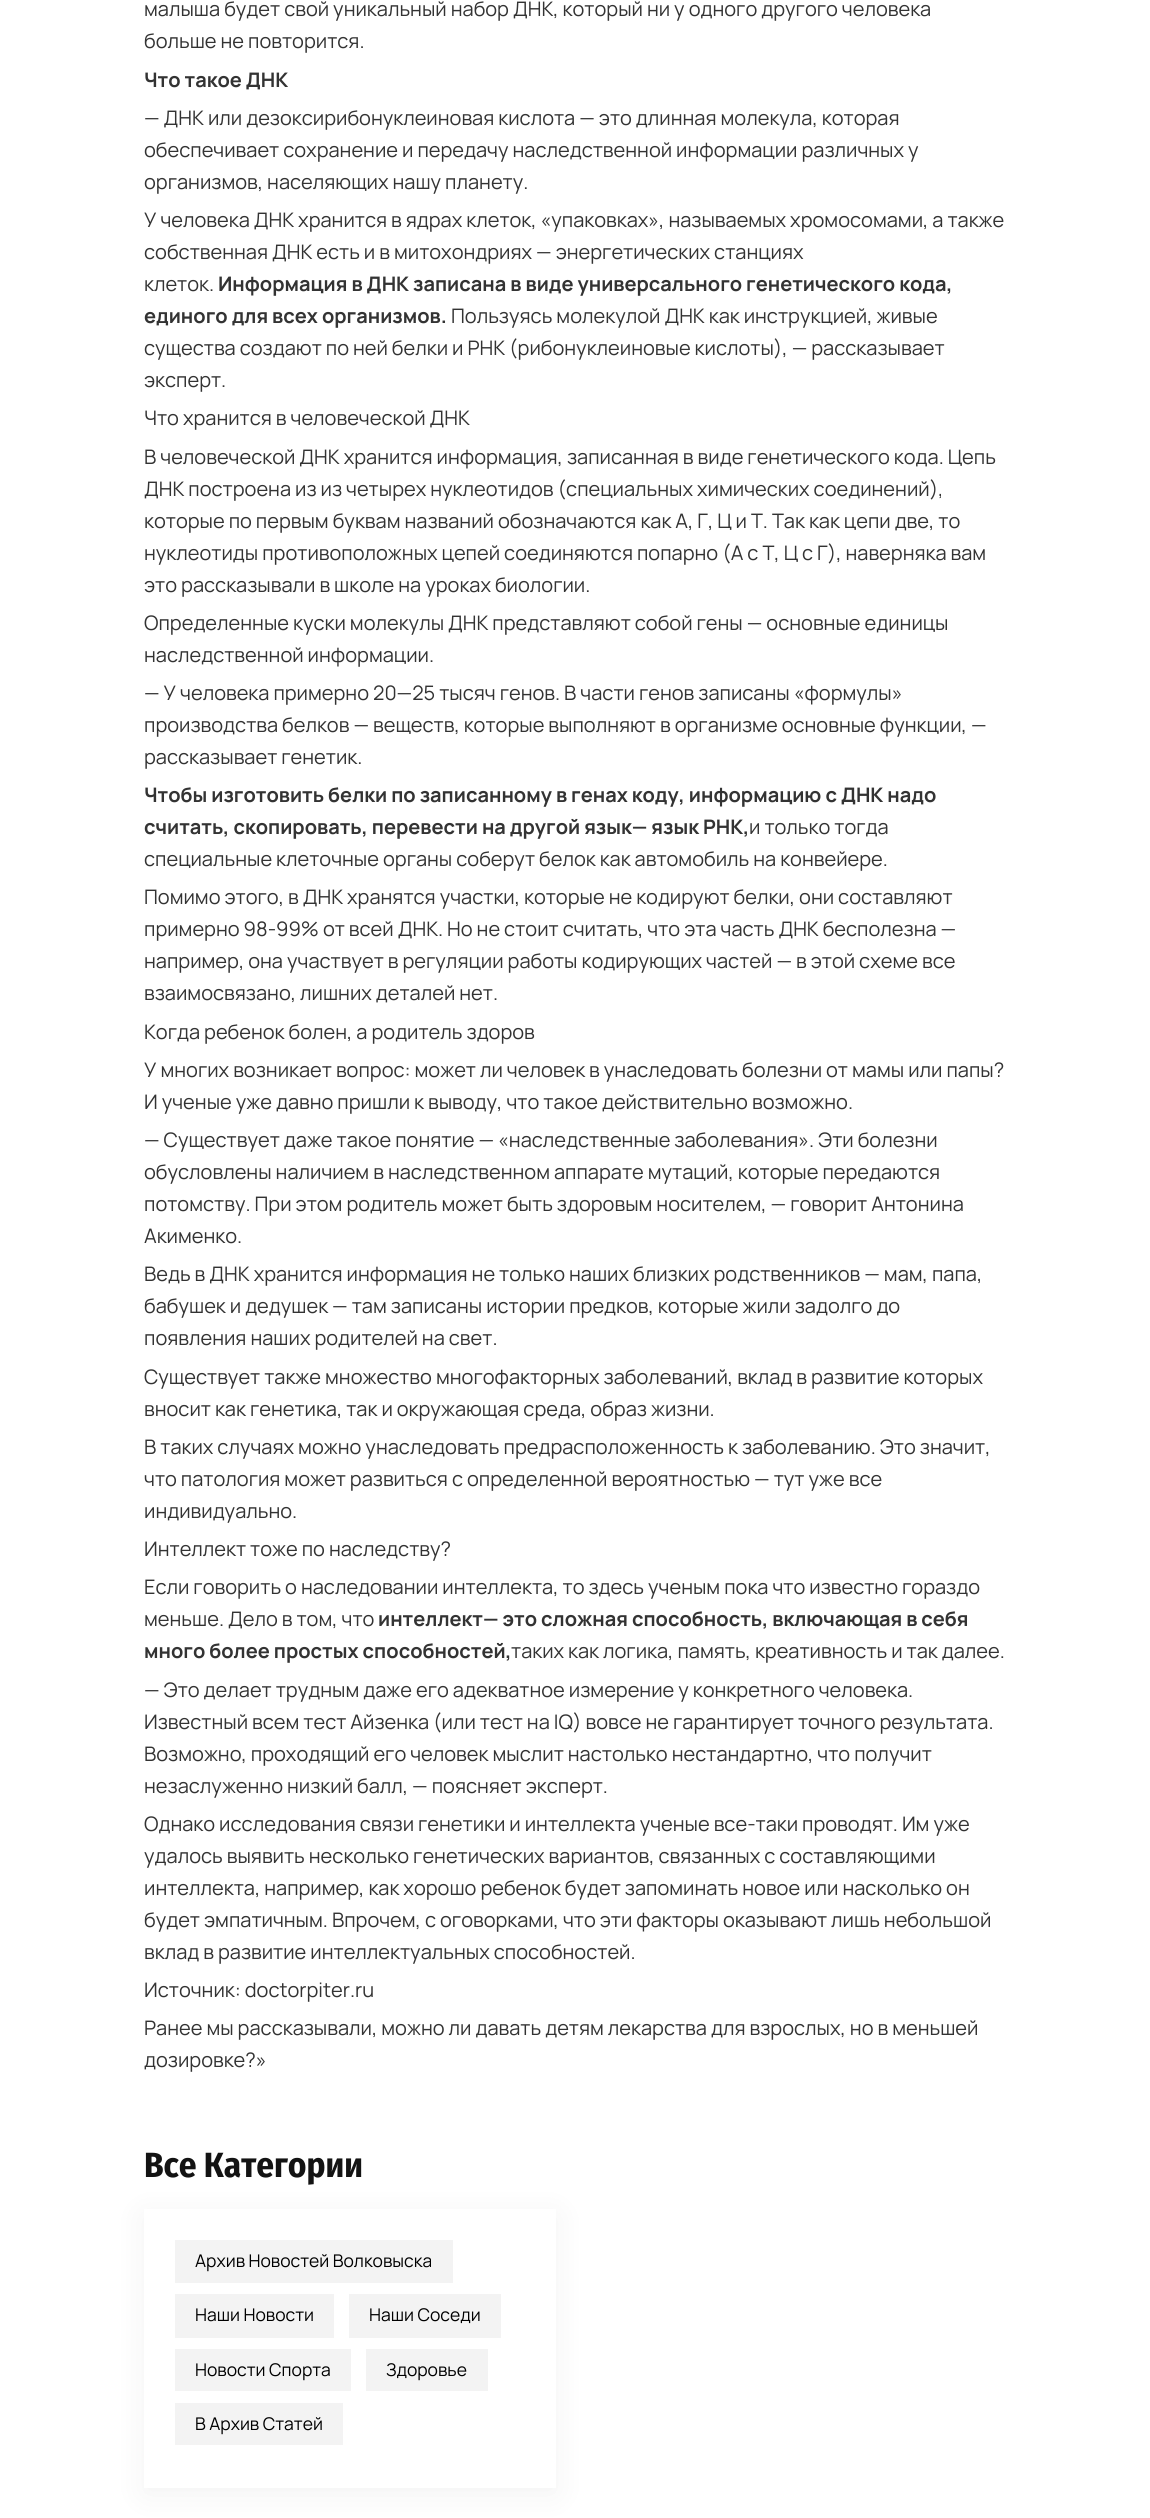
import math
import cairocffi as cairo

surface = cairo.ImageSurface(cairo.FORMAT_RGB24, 1150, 2518)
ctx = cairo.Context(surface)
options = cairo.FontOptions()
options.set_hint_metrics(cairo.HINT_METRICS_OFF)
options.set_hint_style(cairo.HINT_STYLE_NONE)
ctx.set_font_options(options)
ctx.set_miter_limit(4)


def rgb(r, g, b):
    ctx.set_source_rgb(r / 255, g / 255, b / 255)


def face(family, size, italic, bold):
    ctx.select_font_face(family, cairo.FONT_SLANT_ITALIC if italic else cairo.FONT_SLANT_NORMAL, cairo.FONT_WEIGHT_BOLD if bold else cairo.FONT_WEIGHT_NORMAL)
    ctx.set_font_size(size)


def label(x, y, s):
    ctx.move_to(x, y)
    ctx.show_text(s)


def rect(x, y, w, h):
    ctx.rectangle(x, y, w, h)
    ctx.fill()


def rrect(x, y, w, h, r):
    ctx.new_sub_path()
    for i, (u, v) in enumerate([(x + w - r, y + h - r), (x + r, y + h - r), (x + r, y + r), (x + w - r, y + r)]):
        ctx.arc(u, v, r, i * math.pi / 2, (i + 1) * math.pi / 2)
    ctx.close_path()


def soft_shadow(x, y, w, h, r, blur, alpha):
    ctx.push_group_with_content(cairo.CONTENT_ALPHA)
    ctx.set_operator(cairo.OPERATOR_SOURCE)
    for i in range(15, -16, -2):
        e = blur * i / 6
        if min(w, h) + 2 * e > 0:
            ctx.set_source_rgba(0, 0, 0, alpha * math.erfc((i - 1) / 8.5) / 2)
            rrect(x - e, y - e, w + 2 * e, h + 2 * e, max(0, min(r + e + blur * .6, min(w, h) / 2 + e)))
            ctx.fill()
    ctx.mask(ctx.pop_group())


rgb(255, 255, 255)
ctx.paint()
face('Manrope', 20, 0, 0)
rgb(51, 51, 51)
label(144, 16, 'малыша будет свой уникальный набор ДНК, который ни у одного другого человека')
label(144, 48, 'больше не повторится.')
face('Manrope', 20, 0, 1)
label(144, 87, 'Что такое ДНК')
face('Manrope', 20, 0, 0)
label(144, 125, '— ДНК или дезоксирибонуклеиновая кислота — это длинная молекула, которая')
label(144, 157, 'обеспечивает сохранение и передачу наследственной информации различных у')
label(144, 189, 'организмов, населяющих нашу планету.')
label(144, 227, 'У человека ДНК хранится в ядрах клеток, «упаковках», называемых хромосомами, а также')
label(144, 259, 'собственная ДНК есть и в митохондриях — энергетических станциях')
label(144, 291, 'клеток.')
face('Manrope', 20, 0, 1)
label(218, 291, 'Информация в ДНК записана в виде универсального генетического кода,')
label(144, 323, 'единого для всех организмов.')
face('Manrope', 20, 0, 0)
label(451, 323, 'Пользуясь молекулой ДНК как инструкцией, живые')
label(144, 355, 'существа создают по ней белки и РНК (рибонуклеиновые кислоты), — рассказывает')
label(144, 387, 'эксперт.')
label(144, 425, 'Что хранится в человеческой ДНК')
label(144, 464, 'В человеческой ДНК хранится информация, записанная в виде генетического кода. Цепь')
label(144, 496, 'ДНК построена из из четырех нуклеотидов (специальных химических соединений),')
label(144, 528, 'которые по первым буквам названий обозначаются как А, Г, Ц и Т. Так как цепи две, то')
label(144, 560, 'нуклеотиды противоположных цепей соединяются попарно (А с Т, Ц с Г), наверняка вам')
label(144, 592, 'это рассказывали в школе на уроках биологии.')
label(144, 630, 'Определенные куски молекулы ДНК представляют собой гены — основные единицы')
label(144, 662, 'наследственной информации.')
label(144, 700, '— У человека примерно 20—25 тысяч генов. В части генов записаны «формулы»')
label(144, 732, 'производства белков — веществ, которые выполняют в организме основные функции, —')
label(144, 764, 'рассказывает генетик.')
face('Manrope', 20, 0, 1)
label(144, 802, 'Чтобы изготовить белки по записанному в генах коду, информацию с ДНК надо')
label(144, 834, 'считать, скопировать, перевести на другой язык— язык РНК,')
face('Manrope', 20, 0, 0)
label(749, 834, 'и только тогда')
label(144, 866, 'специальные клеточные органы соберут белок как автомобиль на конвейере.')
label(144, 904, 'Помимо этого, в ДНК хранятся участки, которые не кодируют белки, они составляют')
label(144, 936, 'примерно 98-99% от всей ДНК. Но не стоит считать, что эта часть ДНК бесполезна —')
label(144, 968, 'например, она участвует в регуляции работы кодирующих частей — в этой схеме все')
label(144, 1000, 'взаимосвязано, лишних деталей нет.')
label(144, 1039, 'Когда ребенок болен, а родитель здоров')
label(144, 1077, 'У многих возникает вопрос: может ли человек в унаследовать болезни от мамы или папы?')
label(144, 1109, 'И ученые уже давно пришли к выводу, что такое действительно возможно.')
label(144, 1147, '— Существует даже такое понятие — «наследственные заболевания». Эти болезни')
label(144, 1179, 'обусловлены наличием в наследственном аппарате мутаций, которые передаются')
label(144, 1211, 'потомству. При этом родитель может быть здоровым носителем, — говорит Антонина')
label(144, 1243, 'Акименко.')
label(144, 1281, 'Ведь в ДНК хранится информация не только наших близких родственников — мам, папа,')
label(144, 1313, 'бабушек и дедушек — там записаны истории предков, которые жили задолго до')
label(144, 1345, 'появления наших родителей на свет.')
label(144, 1384, 'Существует также множество многофакторных заболеваний, вклад в развитие которых')
label(144, 1416, 'вносит как генетика, так и окружающая среда, образ жизни.')
label(144, 1454, 'В таких случаях можно унаследовать предрасположенность к заболеванию. Это значит,')
label(144, 1486, 'что патология может развиться с определенной вероятностью — тут уже все')
label(144, 1518, 'индивидуально.')
label(144, 1556, 'Интеллект тоже по наследству?')
label(144, 1594, 'Если говорить о наследовании интеллекта, то здесь ученым пока что известно гораздо')
label(144, 1626, 'меньше. Дело в том, что')
face('Manrope', 20, 0, 1)
label(378, 1626, 'интеллект— это сложная способность, включающая в себя')
label(144, 1658, 'много более простых способностей,')
face('Manrope', 20, 0, 0)
label(511, 1658, 'таких как логика, память, креативность и так далее.')
label(144, 1697, '— Это делает трудным даже его адекватное измерение у конкретного человека.')
label(144, 1729, 'Известный всем тест Айзенка (или тест на IQ) вовсе не гарантирует точного результата.')
label(144, 1761, 'Возможно, проходящий его человек мыслит настолько нестандартно, что получит')
label(144, 1793, 'незаслуженно низкий балл, — поясняет эксперт.')
label(144, 1831, 'Однако исследования связи генетики и интеллекта ученые все-таки проводят. Им уже')
label(144, 1863, 'удалось выявить несколько генетических вариантов, связанных с составляющими')
label(144, 1895, 'интеллекта, например, как хорошо ребенок будет запоминать новое или насколько он')
label(144, 1927, 'будет эмпатичным. Впрочем, с оговорками, что эти факторы оказывают лишь небольшой')
label(144, 1959, 'вклад в развитие интеллектуальных способностей.')
label(144, 1997, 'Источник: doctorpiter.ru')
label(144, 2035, 'Ранее мы рассказывали, можно ли давать детям лекарства для взрослых, но в меньшей')
label(144, 2067, 'дозировке?»')
rgb(0, 0, 0)
soft_shadow(144, 2215, 412, 279, 0, 15.5, 0.05)
face('Fira Sans Condensed', 35, 0, 1)
rgb(19, 19, 19)
label(144, 2177, 'Все Категории')
rgb(255, 255, 255)
rect(144, 2209, 412, 279)
rgb(243, 243, 243)
rect(175, 2240, 278, 43)
face('Manrope', 17.5, 0, 0)
rgb(0, 0, 0)
label(195, 2267, 'Архив Новостей Волковыска')
rgb(243, 243, 243)
rect(175, 2294, 159, 44)
rgb(0, 0, 0)
label(195, 2321, 'Наши Новости')
rgb(243, 243, 243)
rect(349, 2294, 152, 44)
rgb(0, 0, 0)
label(369, 2321, 'Наши Соседи')
rgb(243, 243, 243)
rect(175, 2349, 176, 42)
rgb(0, 0, 0)
label(195, 2376, 'Новости Спорта')
rgb(243, 243, 243)
rect(366, 2349, 122, 42)
rgb(0, 0, 0)
label(386, 2376, 'Здоровье')
rgb(243, 243, 243)
rect(175, 2403, 168, 42)
rgb(0, 0, 0)
label(195, 2430, 'В Архив Статей')
surface.write_to_png('render.png')
